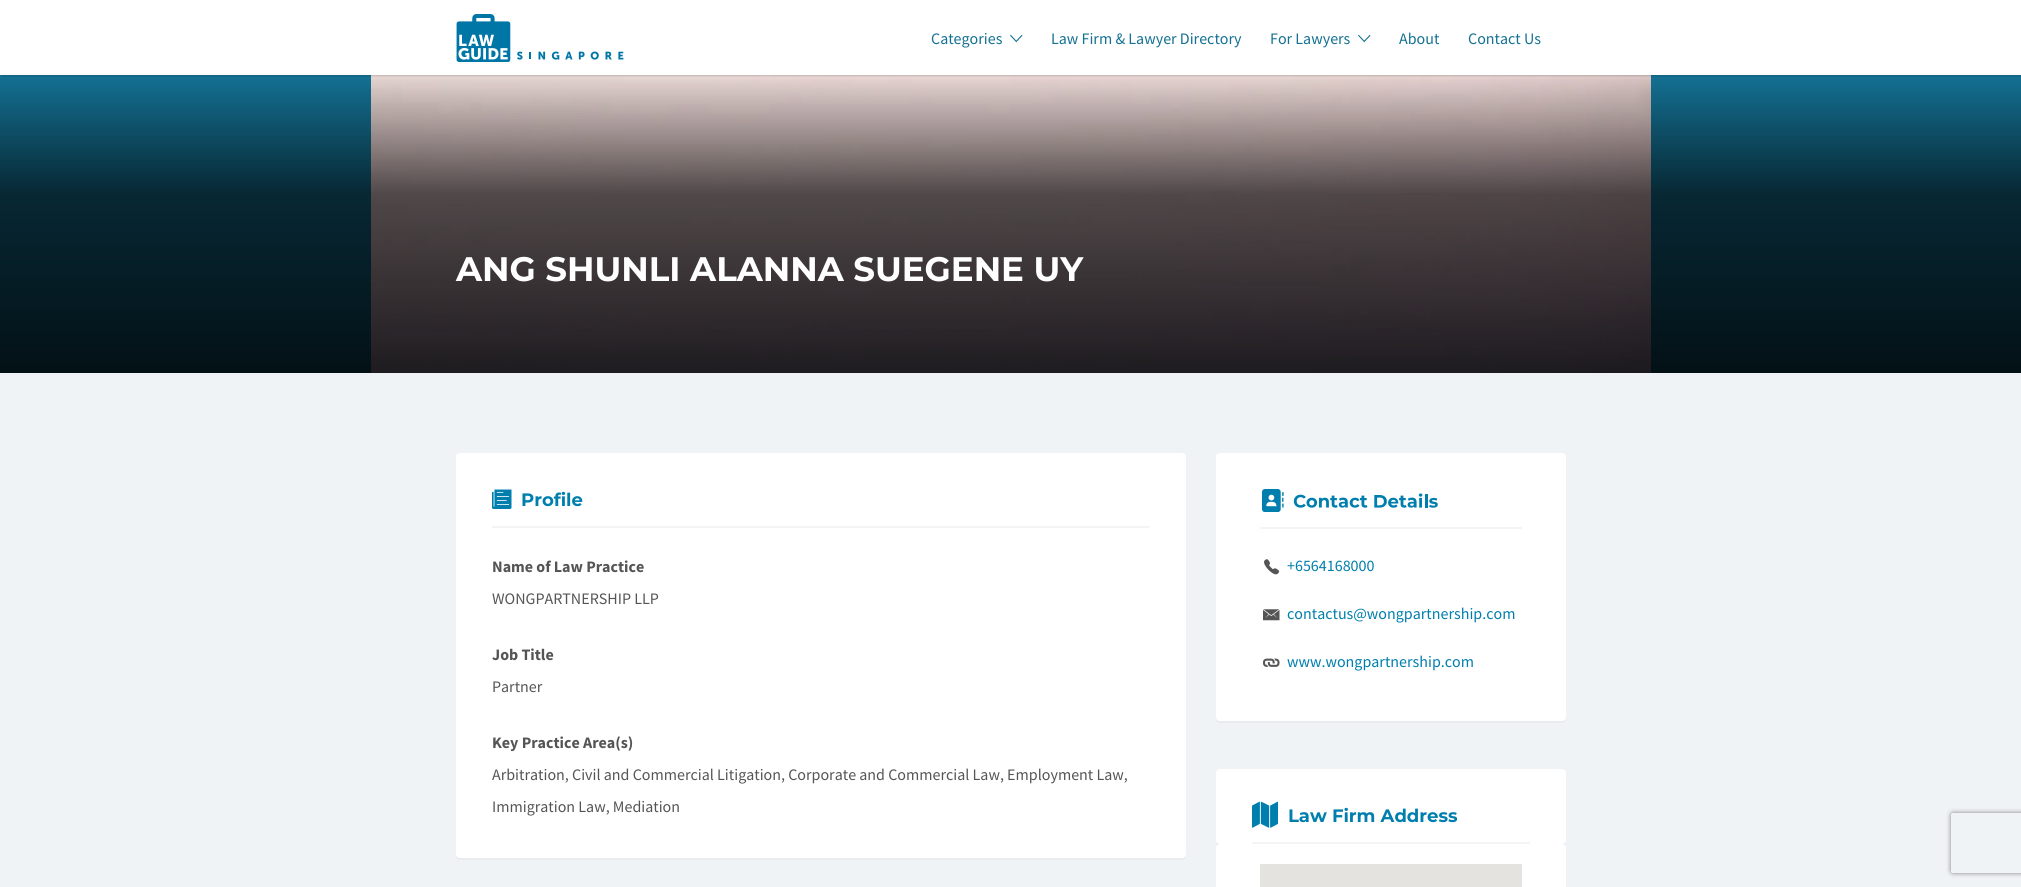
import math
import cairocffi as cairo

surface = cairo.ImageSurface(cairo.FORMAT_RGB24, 2021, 887)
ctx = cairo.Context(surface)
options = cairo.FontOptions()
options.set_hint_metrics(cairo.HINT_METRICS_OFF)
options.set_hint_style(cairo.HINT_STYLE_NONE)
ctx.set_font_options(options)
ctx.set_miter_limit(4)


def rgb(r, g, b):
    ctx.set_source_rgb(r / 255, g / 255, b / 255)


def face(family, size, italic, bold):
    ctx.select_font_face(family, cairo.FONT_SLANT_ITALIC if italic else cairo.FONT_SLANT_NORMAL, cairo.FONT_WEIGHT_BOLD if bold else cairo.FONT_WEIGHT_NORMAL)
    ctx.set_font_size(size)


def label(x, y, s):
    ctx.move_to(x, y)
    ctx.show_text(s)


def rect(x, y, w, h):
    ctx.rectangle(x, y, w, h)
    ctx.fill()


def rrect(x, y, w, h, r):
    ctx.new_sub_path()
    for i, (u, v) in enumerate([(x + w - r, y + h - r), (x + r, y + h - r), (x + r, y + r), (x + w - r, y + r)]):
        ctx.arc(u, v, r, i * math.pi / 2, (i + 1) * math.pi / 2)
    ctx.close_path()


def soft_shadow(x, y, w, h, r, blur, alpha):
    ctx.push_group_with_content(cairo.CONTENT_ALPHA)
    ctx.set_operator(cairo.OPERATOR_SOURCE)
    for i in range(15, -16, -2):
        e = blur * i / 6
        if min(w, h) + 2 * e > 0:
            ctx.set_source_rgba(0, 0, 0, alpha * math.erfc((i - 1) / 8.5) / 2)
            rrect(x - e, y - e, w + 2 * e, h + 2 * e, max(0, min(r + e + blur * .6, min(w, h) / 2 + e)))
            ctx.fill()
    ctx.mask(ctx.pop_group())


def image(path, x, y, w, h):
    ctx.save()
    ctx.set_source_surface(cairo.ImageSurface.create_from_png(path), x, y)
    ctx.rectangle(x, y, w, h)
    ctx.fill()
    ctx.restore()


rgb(240, 243, 246)
ctx.paint()
rgb(20, 113, 147)
rect(0, 75, 2021, 298)
image('image2.png', 371, 75, 1280, 298)
gradient = cairo.LinearGradient(1011, 75, 1011, 373)
gradient.add_color_stop_rgba(0, 0, 0, 0, 0)
gradient.add_color_stop_rgba(0.4, 0, 0, 0, 0.65)
gradient.add_color_stop_rgba(1, 0, 0, 0, 0.85)
ctx.set_source(gradient)
rect(0, 79, 2021, 294)
rgb(0, 0, 0)
soft_shadow(2, 0, 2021, 75, 0, 1.5, 0.3)
rgb(255, 255, 255)
rect(0, 0, 2021, 75)
image('image0.png', 456, 14, 168, 48)
face('Source Sans Pro', 16, 0, 0)
rgb(20, 113, 147)
label(931, 44, 'Categories')
image('image1.png', 1010, 34, 13, 9)
label(1051, 44, 'Law Firm & Lawyer Directory')
label(1270, 44, 'For Lawyers')
image('image1.png', 1358, 34, 13, 9)
label(1399, 44, 'About')
label(1468, 44, 'Contact Us')
face('Montserrat', 34, 0, 1)
rgb(255, 255, 255)
label(456, 281, 'ANG SHUNLI ALANNA SUEGENE UY')
rgb(233, 236, 239)
ctx.new_path()
ctx.move_to(456, 854)
ctx.curve_to(456, 857, 456, 860, 460, 860)
ctx.line_to(1182, 860)
ctx.curve_to(1186, 860, 1186, 857, 1186, 854)
ctx.curve_to(1186, 856, 1184, 858, 1182, 858)
ctx.line_to(460, 858)
ctx.curve_to(458, 858, 456, 856, 456, 854)
ctx.close_path()
ctx.fill()
rgb(255, 255, 255)
rrect(456.5, 453.5, 729, 404, 3.5)
ctx.fill_preserve()
ctx.set_line_width(1)
ctx.stroke()
rgb(244, 244, 244)
rect(492, 526, 658, 2)
image('image3.png', 492, 489, 20, 20)
face('Montserrat', 18, 0, 1)
rgb(0, 126, 173)
label(521, 506, 'Profile')
face('Source Sans Pro', 16, 0, 1)
rgb(85, 85, 85)
label(492, 572, 'Name of Law Practice')
face('Source Sans Pro', 16, 0, 0)
label(492, 604, 'WONGPARTNERSHIP LLP')
face('Source Sans Pro', 16, 0, 1)
label(492, 660, 'Job Title')
face('Source Sans Pro', 16, 0, 0)
label(492, 692, 'Partner')
face('Source Sans Pro', 16, 0, 1)
label(492, 748, 'Key Practice Area(s)')
face('Source Sans Pro', 16, 0, 0)
label(492, 780, 'Arbitration, Civil and Commercial Litigation, Corporate and Commercial Law, Employment Law,')
label(492, 812, 'Immigration Law, Mediation')
rgb(233, 236, 239)
ctx.new_path()
ctx.move_to(1216, 717)
ctx.curve_to(1216, 720, 1216, 723, 1220, 723)
ctx.line_to(1563, 723)
ctx.curve_to(1566, 722, 1566, 720, 1566, 717)
ctx.curve_to(1566, 719, 1564, 721, 1562, 721)
ctx.line_to(1220, 721)
ctx.curve_to(1218, 721, 1216, 719, 1216, 717)
ctx.close_path()
ctx.fill()
rgb(255, 255, 255)
rrect(1216.5, 453.5, 349, 267, 3.5)
ctx.fill_preserve()
ctx.stroke()
image('image4.png', 1262, 489, 176, 23)
rgb(244, 244, 244)
rect(1260, 527, 262, 2)
image('image5.png', 1264, 559, 16, 16)
rgb(0, 126, 173)
label(1287, 571, '+6564168000')
image('image6.png', 1263, 609, 17, 12)
label(1287, 619, 'contactus@wongpartnership.com')
image('image7.png', 1263, 658, 17, 9)
label(1287, 667, 'www.wongpartnership.com')
rgb(233, 236, 239)
ctx.new_path()
ctx.move_to(1216, 840)
ctx.curve_to(1216, 843, 1216, 846, 1220, 846)
ctx.line_to(1563, 846)
ctx.curve_to(1566, 845, 1566, 843, 1566, 840)
ctx.curve_to(1566, 842, 1564, 844, 1562, 844)
ctx.line_to(1220, 844)
ctx.curve_to(1218, 844, 1216, 842, 1216, 840)
ctx.close_path()
ctx.fill()
rgb(255, 255, 255)
rrect(1216.5, 769.5, 349, 74, 3.5)
ctx.fill_preserve()
ctx.stroke()
rgb(244, 244, 244)
rect(1252, 842, 278, 2)
image('image8.png', 1252, 801, 26, 27)
face('Montserrat', 18, 0, 1)
rgb(0, 126, 173)
label(1288, 822, 'Law Firm Address')
rgb(255, 255, 255)
rrect(1216.5, 844.5, 349, 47, 3.5)
ctx.fill_preserve()
ctx.stroke()
rgb(229, 227, 223)
rect(1260, 864, 262, 23)
ctx.save()
ctx.set_fill_rule(cairo.FILL_RULE_EVEN_ODD)
ctx.new_path()
ctx.move_to(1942, 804)
ctx.line_to(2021, 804)
ctx.line_to(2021, 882)
ctx.line_to(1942, 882)
ctx.close_path()
ctx.move_to(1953, 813)
ctx.line_to(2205, 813)
ctx.curve_to(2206, 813, 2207, 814, 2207, 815)
ctx.line_to(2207, 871)
ctx.curve_to(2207, 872, 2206, 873, 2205, 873)
ctx.line_to(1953, 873)
ctx.curve_to(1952, 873, 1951, 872, 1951, 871)
ctx.line_to(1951, 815)
ctx.curve_to(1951, 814, 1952, 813, 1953, 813)
ctx.close_path()
ctx.clip()
rgb(128, 128, 128)
soft_shadow(1951, 813, 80, 60, 2, 2.5, 1)
ctx.restore()
surface.write_to_png('render.png')
